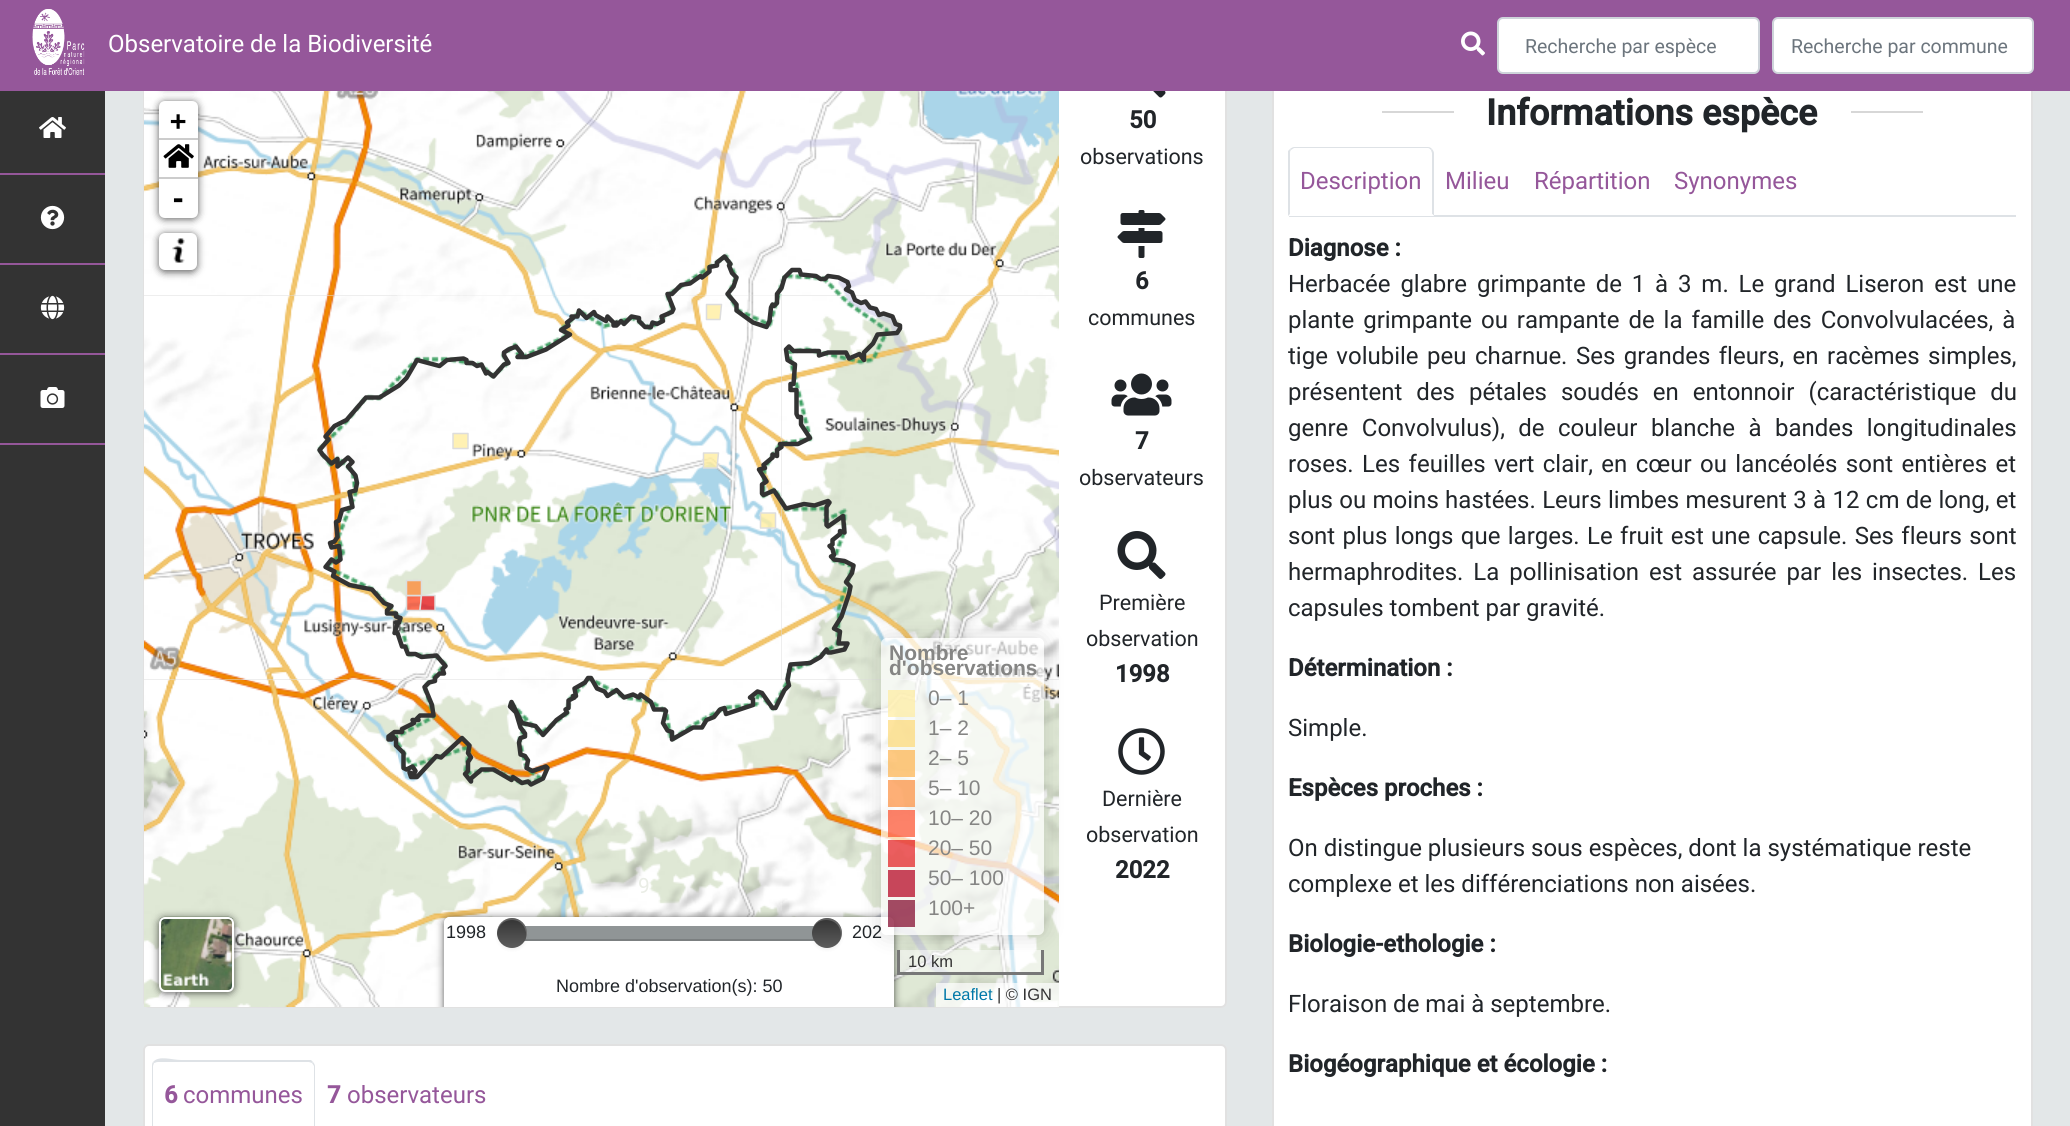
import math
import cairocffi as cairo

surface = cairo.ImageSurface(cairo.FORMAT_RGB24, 2070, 1126)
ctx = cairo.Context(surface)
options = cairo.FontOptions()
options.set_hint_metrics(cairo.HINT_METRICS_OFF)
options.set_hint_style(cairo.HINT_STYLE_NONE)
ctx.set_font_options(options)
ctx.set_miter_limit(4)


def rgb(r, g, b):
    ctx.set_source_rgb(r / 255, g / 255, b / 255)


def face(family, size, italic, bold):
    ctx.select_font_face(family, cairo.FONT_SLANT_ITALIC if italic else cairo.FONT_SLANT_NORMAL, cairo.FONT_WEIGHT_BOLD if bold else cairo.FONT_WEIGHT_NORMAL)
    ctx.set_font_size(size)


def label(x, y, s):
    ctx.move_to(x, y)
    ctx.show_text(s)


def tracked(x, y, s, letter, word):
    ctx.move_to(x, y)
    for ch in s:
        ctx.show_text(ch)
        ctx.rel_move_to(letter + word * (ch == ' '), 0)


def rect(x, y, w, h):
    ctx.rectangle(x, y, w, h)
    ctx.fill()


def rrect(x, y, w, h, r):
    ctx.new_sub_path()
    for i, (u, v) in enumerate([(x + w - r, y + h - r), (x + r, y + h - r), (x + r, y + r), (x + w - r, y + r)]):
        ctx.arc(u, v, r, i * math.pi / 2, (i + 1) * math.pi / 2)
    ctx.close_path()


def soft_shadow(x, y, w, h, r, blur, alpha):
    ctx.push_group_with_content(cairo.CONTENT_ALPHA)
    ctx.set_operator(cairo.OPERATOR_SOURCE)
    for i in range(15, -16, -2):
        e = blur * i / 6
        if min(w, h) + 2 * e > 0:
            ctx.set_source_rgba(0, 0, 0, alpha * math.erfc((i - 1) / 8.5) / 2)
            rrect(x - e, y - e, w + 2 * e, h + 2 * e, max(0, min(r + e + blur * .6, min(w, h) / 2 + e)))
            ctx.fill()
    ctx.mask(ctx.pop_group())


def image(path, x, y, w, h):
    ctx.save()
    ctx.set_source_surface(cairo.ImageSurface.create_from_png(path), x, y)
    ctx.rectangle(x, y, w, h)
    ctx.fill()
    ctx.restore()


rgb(227, 231, 232)
ctx.paint()
rgb(255, 255, 255)
rrect(143, 30, 1084, 978, 6)
ctx.fill()
rrect(144, 31, 1082, 976, 5)
ctx.set_source_rgba(0, 0, 0, 0.12)
ctx.stroke()
rgb(221, 221, 221)
rect(144, 295, 915, 385)
image('image10.png', 397, 295, 385, 385)
image('image6.png', 144, 91, 254, 205)
rgb(0, 0, 0)
soft_shadow(159, 48, 39, 39, 6, 4, 0.65)
soft_shadow(159, 102, 39, 117, 6, 4, 0.65)
rgb(255, 255, 255)
rect(1272, 91, 761, 1035)
ctx.rectangle(1273, 76, 759, 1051)
ctx.set_source_rgba(0, 0, 0, 0.12)
ctx.stroke()
rgb(149, 87, 154)
rect(0, 0, 2070, 91)
image('image0.png', 32, 9, 53, 66)
face('Roboto', 24, 0, 0)
rgb(255, 255, 255)
label(108, 52, 'Observatoire de la Biodiversité')
image('image1.png', 1461, 31, 24, 25)
rrect(1498, 18, 261, 55, 5)
ctx.fill_preserve()
rgb(206, 212, 218)
ctx.stroke()
face('Roboto', 19.5, 0, 0)
rgb(108, 117, 125)
label(1525, 53, 'Recherche par espèce')
rgb(255, 255, 255)
rrect(1773, 18, 260, 55, 5)
ctx.fill_preserve()
rgb(206, 212, 218)
ctx.stroke()
rgb(108, 117, 125)
label(1791, 53, 'Recherche par commune')
rgb(51, 51, 51)
rect(0, 91, 105, 1035)
rgb(149, 87, 154)
rect(0, 173, 105, 2)
image('image2.png', 39, 117, 27, 21)
rect(0, 263, 105, 2)
image('image3.png', 40, 205, 25, 25)
rect(0, 353, 105, 2)
image('image4.png', 40, 295, 25, 25)
rect(0, 443, 105, 2)
image('image5.png', 40, 387, 25, 21)
image('image7.png', 398, 91, 384, 205)
image('image8.png', 782, 91, 277, 205)
image('image9.png', 144, 296, 254, 384)
image('image11.png', 782, 296, 277, 384)
image('image12.png', 144, 680, 254, 327)
image('image13.png', 398, 680, 384, 327)
image('image14.png', 782, 680, 277, 327)
image('image15.png', 317, 254, 586, 533)
rgb(255, 255, 255)
ctx.new_path()
ctx.move_to(165, 101)
ctx.line_to(192, 101)
ctx.curve_to(195.5, 101, 198, 103.5, 198, 107)
ctx.line_to(198, 140)
ctx.line_to(159, 140)
ctx.line_to(159, 107)
ctx.curve_to(159, 103.5, 161.5, 101, 165, 101)
ctx.close_path()
ctx.fill()
rgb(204, 204, 204)
rect(159, 138, 39, 2)
face('DejaVu Sans Mono', 27, 0, 1)
rgb(0, 0, 0)
label(170, 130, '+')
rgb(255, 255, 255)
rect(159, 140, 39, 37)
rgb(204, 204, 204)
rect(159, 177, 39, 2)
image('image16.png', 163, 144, 31, 24)
rgb(255, 255, 255)
ctx.new_path()
ctx.move_to(159, 179)
ctx.line_to(198, 179)
ctx.line_to(198, 212)
ctx.curve_to(198, 215.5, 195.5, 218, 192, 218)
ctx.line_to(165, 218)
ctx.curve_to(161.5, 218, 159, 215.5, 159, 212)
ctx.close_path()
ctx.fill()
rgb(0, 0, 0)
label(170, 208, '-')
rgb(0, 0, 0)
soft_shadow(159, 234, 38, 38, 6, 4, 0.65)
rgb(255, 255, 255)
rrect(160, 234, 36, 35, 5)
ctx.fill_preserve()
ctx.stroke()
image('image17.png', 172, 238, 13, 25)
rgb(0, 0, 0)
soft_shadow(159, 918, 75, 75, 6, 4, 0.65)
image('image18.png', 159, 916, 75, 76)
rrect(160, 918, 73, 73, 5)
rgb(255, 255, 255)
ctx.stroke()
ctx.save()
ctx.rectangle(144, 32, 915, 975)
ctx.clip()
rgb(0, 0, 0)
soft_shadow(444, 918, 450, 105, 6, 4, 0.65)
ctx.restore()
ctx.new_path()
ctx.move_to(450, 917)
ctx.line_to(888, 917)
ctx.curve_to(891.5, 917, 894, 919.5, 894, 923)
ctx.line_to(894, 1007)
ctx.line_to(444, 1007)
ctx.line_to(444, 923)
ctx.curve_to(444, 919.5, 446.5, 917, 450, 917)
ctx.close_path()
ctx.fill()
ctx.save()
ctx.rectangle(144, 32, 915, 975)
ctx.clip()
rrect(445, 918, 448, 103, 5)
ctx.stroke()
ctx.restore()
face('Roboto', 21, 0, 0)
rgb(234, 237, 230)
label(638, 893, '9')
rgb(144, 149, 150)
rect(524, 926, 291, 15)
ctx.set_source_rgba(0, 0, 0, 0.15)
ctx.new_path()
ctx.move_to(512, 933)
ctx.line_to(512, 935)
ctx.curve_to(512, 938, 515, 941, 518, 941)
ctx.line_to(821, 941)
ctx.curve_to(824, 941, 827, 938, 827, 935)
ctx.line_to(827, 932)
ctx.curve_to(827, 931, 827, 929, 826, 928)
ctx.curve_to(827, 933, 826, 939, 820, 939)
ctx.line_to(518, 939)
ctx.curve_to(515, 939, 512, 936, 512, 933)
ctx.close_path()
ctx.fill()
rgb(0, 0, 0)
soft_shadow(497, 920, 30, 30, 15, 1.5, 0.05)
gradient = cairo.LinearGradient(512, 918, 512, 948)
gradient.add_color_stop_rgba(0, 0.2, 0.2, 0.2, 1)
gradient.add_color_stop_rgba(1, 0.365, 0.365, 0.365, 1)
ctx.set_source(gradient)
ctx.arc(512, 933, 15, 0, 2 * math.pi)
ctx.fill()
ctx.set_source_rgba(1, 1, 1, 0.2)
ctx.new_path()
ctx.move_to(512, 920)
ctx.curve_to(523, 920, 527.5, 930.5, 526, 939)
ctx.curve_to(532.5, 922.5, 510, 909.5, 499.5, 924.5)
ctx.curve_to(497.5, 927.5, 497, 930.5, 497, 934)
ctx.curve_to(497.5, 927, 502.5, 920, 512, 920)
ctx.close_path()
ctx.fill()
rgb(0, 0, 0)
soft_shadow(812, 920, 30, 30, 15, 1.5, 0.05)
gradient = cairo.LinearGradient(827, 918, 827, 948)
gradient.add_color_stop_rgba(0, 0.2, 0.2, 0.2, 1)
gradient.add_color_stop_rgba(1, 0.365, 0.365, 0.365, 1)
ctx.set_source(gradient)
ctx.arc(827, 933, 15, 0, 2 * math.pi)
ctx.fill()
ctx.set_source_rgba(1, 1, 1, 0.2)
ctx.new_path()
ctx.move_to(826, 920)
ctx.curve_to(838.5, 920, 843, 931.5, 840, 940)
ctx.curve_to(848, 926, 829.5, 910.5, 817, 922)
ctx.curve_to(814, 924.5, 812.5, 928, 812, 932)
ctx.curve_to(813, 925.5, 818, 920, 826, 920)
ctx.close_path()
ctx.fill()
face('Liberation Sans', 18, 0, 0)
rgb(33, 37, 41)
label(446, 938, '1998')
label(852, 938, '202')
label(556, 992, 'Nombre d\'observation(s): 50')
ctx.save()
ctx.set_fill_rule(cairo.FILL_RULE_EVEN_ODD)
ctx.new_path()
ctx.move_to(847, 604)
ctx.line_to(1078, 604)
ctx.line_to(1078, 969)
ctx.line_to(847, 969)
ctx.close_path()
ctx.move_to(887, 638)
ctx.line_to(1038, 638)
ctx.curve_to(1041.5, 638, 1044, 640.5, 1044, 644)
ctx.line_to(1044, 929)
ctx.curve_to(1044, 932.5, 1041.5, 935, 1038, 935)
ctx.line_to(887, 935)
ctx.curve_to(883.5, 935, 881, 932.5, 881, 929)
ctx.line_to(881, 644)
ctx.curve_to(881, 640.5, 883.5, 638, 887, 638)
ctx.close_path()
ctx.clip()
rgb(0, 0, 0)
soft_shadow(881, 638, 163, 297, 6, 11, 0.14)
ctx.restore()
ctx.set_source_rgba(1, 1, 1, 0.7)
rrect(881, 638, 163, 297, 6)
ctx.fill()
face('Liberation Sans', 21, 0, 1)
rgb(133, 133, 132)
label(889, 660, 'Nombre')
label(889, 675, 'd\'observations')
ctx.set_source_rgba(1, 0.929, 0.627, 0.7)
rect(888, 690, 27, 27)
face('Liberation Sans', 21, 0, 0)
rgb(133, 133, 132)
label(928, 705, '0– 1')
ctx.set_source_rgba(0.996, 0.851, 0.463, 0.7)
rect(888, 720, 27, 27)
rgb(133, 133, 132)
label(928, 735, '1– 2')
ctx.set_source_rgba(0.996, 0.698, 0.298, 0.7)
rect(888, 750, 27, 27)
rgb(133, 133, 132)
label(928, 765, '2– 5')
ctx.set_source_rgba(0.992, 0.553, 0.235, 0.7)
rect(888, 780, 27, 27)
rgb(133, 133, 132)
label(928, 795, '5– 10')
ctx.set_source_rgba(0.988, 0.306, 0.165, 0.7)
rect(888, 810, 27, 27)
rgb(133, 133, 132)
label(928, 825, '10– 20')
ctx.set_source_rgba(0.89, 0.102, 0.11, 0.7)
rect(888, 840, 27, 27)
rgb(133, 133, 132)
label(928, 855, '20– 50')
rgb(199, 70, 90)
rect(888, 870, 27, 27)
rgb(133, 133, 132)
label(928, 885, '50– 100')
ctx.set_source_rgba(0.502, 0, 0.149, 0.7)
rect(888, 900, 27, 27)
rgb(133, 133, 132)
label(928, 915, '100+')
ctx.set_source_rgba(1, 1, 1, 0.5)
rect(900, 950, 141, 22)
rgb(119, 119, 119)
rect(1041, 950, 3, 25)
rect(897, 972, 147, 3)
rect(897, 950, 3, 25)
face('Liberation Sans', 16.5, 0, 0)
rgb(51, 51, 51)
label(908, 967, '10 km')
ctx.set_source_rgba(1, 1, 1, 0.7)
rect(936, 983, 123, 24)
rgb(0, 120, 168)
label(943, 1000, 'Leaflet')
rgb(51, 51, 51)
label(997, 1000, '| © IGN')
image('image19.png', 1153, 91, 13, 7)
face('Roboto', 24, 0, 1)
rgb(33, 37, 41)
label(1129, 128, '50')
face('Roboto', 21.5, 0, 0)
label(1080, 164, 'observations')
image('image20.png', 1117, 210, 49, 48)
face('Roboto', 24, 0, 1)
label(1135, 289, '6')
face('Roboto', 21.5, 0, 0)
label(1088, 325, 'communes')
image('image21.png', 1111, 373, 61, 43)
face('Roboto', 24, 0, 1)
label(1135, 449, '7')
face('Roboto', 21.5, 0, 0)
label(1079, 485, 'observateurs')
image('image22.png', 1117, 531, 49, 48)
label(1099, 610, 'Première')
label(1086, 646, 'observation')
face('Roboto', 24, 0, 1)
label(1115, 682, '1998')
image('image23.png', 1118, 728, 47, 47)
face('Roboto', 21.5, 0, 0)
label(1102, 806, 'Dernière')
label(1086, 842, 'observation')
face('Roboto', 24, 0, 1)
label(1115, 878, '2022')
rgb(255, 255, 255)
rrect(143, 1044, 1084, 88, 6)
ctx.fill()
rrect(144, 1045, 1082, 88, 5)
ctx.set_source_rgba(0, 0, 0, 0.12)
ctx.stroke()
rgb(222, 226, 230)
ctx.new_path()
ctx.move_to(158, 1062)
ctx.curve_to(156, 1062, 155, 1063, 154, 1063)
ctx.line_to(153, 1062)
ctx.curve_to(159, 1055, 172, 1060, 181, 1060)
ctx.line_to(311, 1060)
ctx.line_to(313, 1062)
ctx.line_to(312, 1063)
ctx.line_to(309, 1062)
ctx.close_path()
ctx.fill()
ctx.new_path()
ctx.move_to(315, 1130)
ctx.line_to(315, 1066)
ctx.curve_to(315, 1065, 314, 1063, 313, 1062)
ctx.line_to(312, 1063)
ctx.line_to(314, 1066)
ctx.line_to(314, 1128)
ctx.close_path()
ctx.fill()
ctx.new_path()
ctx.move_to(152, 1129)
ctx.line_to(152, 1066)
ctx.curve_to(152, 1065, 152, 1063, 153, 1062)
ctx.line_to(154, 1063)
ctx.line_to(153, 1066)
ctx.line_to(153, 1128)
ctx.close_path()
ctx.fill()
rgb(149, 87, 154)
label(164, 1103, '6')
face('Roboto', 24, 0, 0)
label(183, 1103, 'communes')
face('Roboto', 24, 0, 1)
label(327, 1103, '7')
face('Roboto', 24, 0, 0)
label(347, 1103, 'observateurs')
rgb(215, 215, 215)
rect(1382, 111, 72, 2)
face('Roboto', 36, 0, 1)
rgb(33, 37, 41)
label(1486, 125, 'Informations espèce')
rgb(215, 215, 215)
rect(1851, 111, 72, 2)
rgb(222, 226, 230)
rect(1289, 215, 727, 2)
rgb(255, 255, 255)
ctx.new_path()
ctx.move_to(1295, 147)
ctx.line_to(1428, 147)
ctx.curve_to(1431.5, 147, 1434, 149.5, 1434, 153)
ctx.line_to(1434, 216)
ctx.line_to(1289, 216)
ctx.line_to(1289, 153)
ctx.curve_to(1289, 149.5, 1291.5, 147, 1295, 147)
ctx.close_path()
ctx.fill()
rgb(222, 226, 230)
ctx.new_path()
ctx.move_to(1294, 147)
ctx.curve_to(1293, 147, 1291, 148, 1290, 149)
ctx.line_to(1291, 150)
ctx.line_to(1294, 148)
ctx.line_to(1428, 148)
ctx.curve_to(1429, 148, 1430, 149, 1431, 150)
ctx.line_to(1432, 149)
ctx.curve_to(1431, 148, 1430, 147, 1428, 147)
ctx.close_path()
ctx.fill()
ctx.new_path()
ctx.move_to(1434, 216)
ctx.line_to(1434, 153)
ctx.curve_to(1434, 152, 1433, 150, 1432, 149)
ctx.line_to(1431, 150)
ctx.line_to(1432, 153)
ctx.line_to(1432, 214)
ctx.close_path()
ctx.fill()
rgb(255, 255, 255)
ctx.new_path()
ctx.move_to(1434, 216)
ctx.line_to(1432, 214)
ctx.line_to(1290, 214)
ctx.line_to(1288, 216)
ctx.close_path()
ctx.fill()
rgb(222, 226, 230)
ctx.new_path()
ctx.move_to(1288, 216)
ctx.line_to(1288, 151)
ctx.line_to(1290, 149)
ctx.line_to(1291, 150)
ctx.curve_to(1290, 151, 1290, 152, 1290, 153)
ctx.line_to(1290, 214)
ctx.close_path()
ctx.fill()
face('Roboto', 24, 0, 0)
rgb(149, 87, 154)
label(1300, 189, 'Description')
label(1445, 189, 'Milieu')
label(1534, 189, 'Répartition')
label(1674, 189, 'Synonymes')
face('Roboto', 24, 0, 1)
rgb(33, 37, 41)
label(1288, 256, 'Diagnose :')
face('Roboto', 24, 0, 0)
tracked(1288, 292, 'Herbacée glabre grimpante de 1 à 3 m. Le grand Liseron est une', 0, 3.9)
tracked(1288, 328, 'plante grimpante ou rampante de la famille des Convolvulacées, à', 0, 3)
tracked(1288, 364, 'tige volubile peu charnue. Ses grandes fleurs, en racèmes simples,', 0, 2.5)
tracked(1288, 400, 'présentent des pétales soudés en entonnoir (caractéristique du', 0, 8)
tracked(1288, 436, 'genre Convolvulus), de couleur blanche à bandes longitudinales', 0, 7.5)
tracked(1288, 472, 'roses. Les feuilles vert clair, en cœur ou lancéolés sont entières et', 0, 2.5)
tracked(1288, 508, 'plus ou moins hastées. Leurs limbes mesurent 3 à 12 cm de long, et', 0, 0.4)
tracked(1288, 544, 'sont plus longs que larges. Le fruit est une capsule. Ses fleurs sont', 0, 1.4)
tracked(1288, 580, 'hermaphrodites. La pollinisation est assurée par les insectes. Les', 0, 4)
label(1288, 616, 'capsules tombent par gravité.')
face('Roboto', 24, 0, 1)
label(1288, 676, 'Détermination :')
face('Roboto', 24, 0, 0)
label(1288, 736, 'Simple.')
face('Roboto', 24, 0, 1)
label(1288, 796, 'Espèces proches :')
face('Roboto', 24, 0, 0)
label(1288, 856, 'On distingue plusieurs sous espèces, dont la systématique reste')
label(1288, 892, 'complexe et les différenciations non aisées.')
face('Roboto', 24, 0, 1)
label(1288, 952, 'Biologie-ethologie :')
face('Roboto', 24, 0, 0)
label(1288, 1012, 'Floraison de mai à septembre.')
face('Roboto', 24, 0, 1)
label(1288, 1072, 'Biogéographique et écologie :')
surface.write_to_png('render.png')
